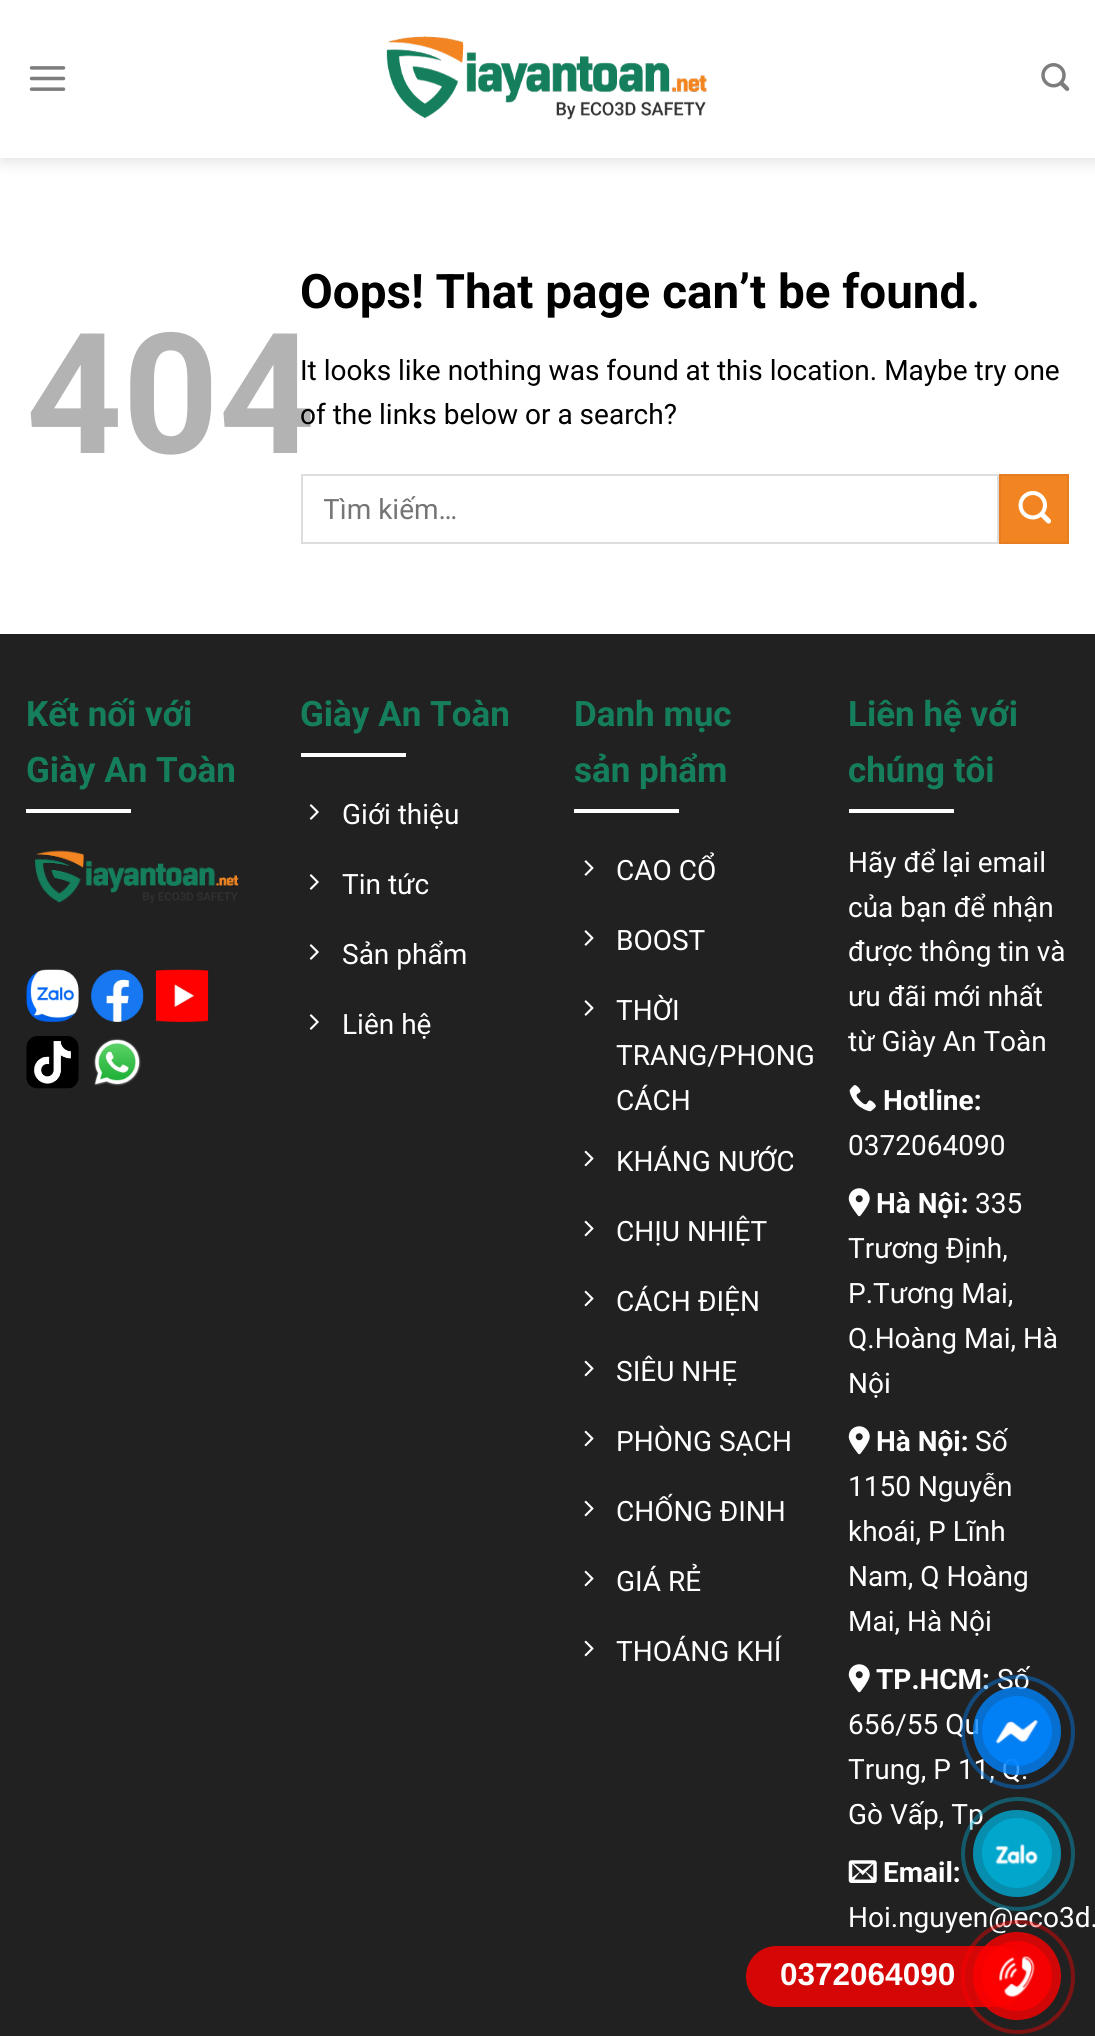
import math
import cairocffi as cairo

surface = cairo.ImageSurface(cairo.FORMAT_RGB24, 1095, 2036)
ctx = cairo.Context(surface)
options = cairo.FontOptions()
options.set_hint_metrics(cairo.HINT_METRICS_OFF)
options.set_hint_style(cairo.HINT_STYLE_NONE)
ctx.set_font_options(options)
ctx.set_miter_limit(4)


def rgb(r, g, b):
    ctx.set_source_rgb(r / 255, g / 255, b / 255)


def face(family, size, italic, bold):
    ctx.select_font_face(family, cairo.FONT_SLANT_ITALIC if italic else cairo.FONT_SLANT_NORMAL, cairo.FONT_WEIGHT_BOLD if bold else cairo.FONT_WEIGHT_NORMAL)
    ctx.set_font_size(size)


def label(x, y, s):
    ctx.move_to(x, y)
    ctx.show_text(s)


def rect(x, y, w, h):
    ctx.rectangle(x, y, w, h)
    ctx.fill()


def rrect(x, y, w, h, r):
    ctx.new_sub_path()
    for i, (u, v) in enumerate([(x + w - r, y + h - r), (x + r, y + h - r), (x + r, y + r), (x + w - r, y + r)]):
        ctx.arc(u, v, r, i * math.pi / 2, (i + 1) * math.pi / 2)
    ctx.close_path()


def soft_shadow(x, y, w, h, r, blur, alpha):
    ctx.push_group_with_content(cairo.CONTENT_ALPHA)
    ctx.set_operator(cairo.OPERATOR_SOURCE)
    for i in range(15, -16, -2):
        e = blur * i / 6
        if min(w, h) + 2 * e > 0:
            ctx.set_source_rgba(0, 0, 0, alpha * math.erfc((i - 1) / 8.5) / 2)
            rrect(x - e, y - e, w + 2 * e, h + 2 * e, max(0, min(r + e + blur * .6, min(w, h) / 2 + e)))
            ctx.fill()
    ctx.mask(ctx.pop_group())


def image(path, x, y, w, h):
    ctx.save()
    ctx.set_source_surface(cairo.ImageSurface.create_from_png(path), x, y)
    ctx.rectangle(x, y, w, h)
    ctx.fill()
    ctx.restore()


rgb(255, 255, 255)
ctx.paint()
ctx.save()
ctx.set_fill_rule(cairo.FILL_RULE_EVEN_ODD)
ctx.new_path()
ctx.move_to(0, 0)
ctx.line_to(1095, 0)
ctx.line_to(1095, 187)
ctx.line_to(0, 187)
ctx.close_path()
ctx.move_to(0, 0)
ctx.line_to(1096, 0)
ctx.line_to(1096, 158)
ctx.line_to(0, 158)
ctx.close_path()
ctx.clip()
rgb(0, 0, 0)
soft_shadow(2, 2, 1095, 157, 0, 9, 0.15)
ctx.restore()
image('image0.png', 29, 66, 37, 25)
image('image1.png', 386, 36, 321, 84)
image('image2.png', 1041, 63, 29, 28)
ctx.set_source_rgba(1, 1, 1, 0.9)
rect(0, 157, 1095, 1)
face('Roboto', 168, 0, 1)
rgb(179, 179, 179)
label(26, 453, '404')
face('Roboto', 47.6, 0, 1)
rgb(0, 0, 0)
label(300, 308, 'Oops! That page can’t be found.')
face('Roboto', 28, 0, 0)
label(300, 380, 'It looks like nothing was found at this location. Maybe try one')
label(300, 424, 'of the links below or a search?')
ctx.rectangle(302, 475, 696, 68)
rgb(221, 221, 221)
ctx.stroke()
ctx.save()
ctx.rectangle(324, 492, 646, 33)
ctx.clip()
rgb(117, 117, 117)
label(323, 519, 'Tìm kiếm…')
ctx.restore()
rgb(242, 132, 34)
ctx.rectangle(1000, 475, 68, 68)
ctx.fill_preserve()
rgb(230, 125, 32)
ctx.stroke()
image('image3.png', 1018, 490, 34, 34)
rgb(33, 33, 33)
rect(0, 634, 1095, 1402)
face('Roboto', 35, 0, 1)
rgb(21, 127, 93)
label(26, 726, 'Kết nối với')
label(26, 782, 'Giày An Toàn')
rgb(255, 255, 255)
rect(26, 809, 105, 4)
image('image4.png', 35, 850, 204, 53)
image('image5.png', 26, 969, 53, 53)
image('image6.png', 91, 969, 53, 53)
image('image7.png', 155, 969, 54, 53)
image('image8.png', 26, 1036, 53, 53)
image('image9.png', 93, 1038, 48, 48)
rgb(21, 127, 93)
label(300, 726, 'Giày An Toàn')
rgb(255, 255, 255)
rect(301, 753, 105, 4)
image('image10.png', 309, 804, 10, 16)
face('Roboto', 28, 0, 0)
label(342, 824, 'Giới thiệu')
image('image10.png', 309, 874, 10, 16)
label(342, 894, 'Tin tức')
image('image10.png', 309, 944, 10, 16)
label(342, 964, 'Sản phẩm')
image('image10.png', 309, 1014, 10, 16)
label(342, 1034, 'Liên hệ')
face('Roboto', 35, 0, 1)
rgb(21, 127, 93)
label(574, 726, 'Danh mục')
label(574, 782, 'sản phẩm')
rgb(255, 255, 255)
rect(574, 809, 105, 4)
image('image11.png', 584, 860, 10, 16)
face('Roboto', 28, 0, 0)
label(616, 880, 'CAO CỔ')
image('image11.png', 584, 930, 10, 16)
label(616, 950, 'BOOST')
image('image11.png', 584, 1000, 10, 16)
label(616, 1020, 'THỜI')
label(616, 1065, 'TRANG/PHONG')
label(616, 1110, 'CÁCH')
image('image12.png', 584, 1150, 10, 17)
label(616, 1171, 'KHÁNG NƯỚC')
image('image12.png', 584, 1220, 10, 17)
label(616, 1241, 'CHỊU NHIỆT')
image('image12.png', 584, 1290, 10, 17)
label(616, 1311, 'CÁCH ĐIỆN')
image('image12.png', 584, 1360, 10, 17)
label(616, 1381, 'SIÊU NHẸ')
image('image12.png', 584, 1430, 10, 17)
label(616, 1451, 'PHÒNG SẠCH')
image('image12.png', 584, 1500, 10, 17)
label(616, 1521, 'CHỐNG ĐINH')
image('image12.png', 584, 1570, 10, 17)
label(616, 1591, 'GIÁ RẺ')
image('image12.png', 584, 1640, 10, 17)
label(616, 1661, 'THOÁNG KHÍ')
face('Roboto', 35, 0, 1)
rgb(21, 127, 93)
label(848, 726, 'Liên hệ với')
label(848, 782, 'chúng tôi')
rgb(255, 255, 255)
rect(849, 809, 105, 4)
face('Roboto', 28, 0, 0)
label(848, 872, 'Hãy để lại email')
label(848, 917, 'của bạn để nhận')
label(848, 961, 'được thông tin và')
label(848, 1006, 'ưu đãi mới nhất')
label(848, 1051, 'từ Giày An Toàn')
image('image13.png', 849, 1085, 27, 27)
face('Roboto', 28, 0, 1)
label(883, 1110, 'Hotline:')
face('Roboto', 28, 0, 0)
label(848, 1155, '0372064090')
image('image14.png', 848, 1188, 22, 29)
face('Roboto', 28, 0, 1)
label(876, 1213, 'Hà Nội:')
face('Roboto', 28, 0, 0)
label(975, 1213, '335')
label(848, 1258, 'Trương Định,')
label(848, 1303, 'P.Tương Mai,')
label(848, 1348, 'Q.Hoàng Mai, Hà')
label(848, 1393, 'Nội')
image('image14.png', 848, 1426, 22, 29)
face('Roboto', 28, 0, 1)
label(876, 1451, 'Hà Nội:')
face('Roboto', 28, 0, 0)
label(975, 1451, 'Số')
label(848, 1496, '1150 Nguyễn')
label(848, 1541, 'khoái, P Lĩnh')
label(848, 1586, 'Nam, Q Hoàng')
label(848, 1631, 'Mai, Hà Nội')
image('image14.png', 848, 1664, 22, 29)
face('Roboto', 28, 0, 1)
label(876, 1689, 'TP.HCM:')
face('Roboto', 28, 0, 0)
label(997, 1689, 'Số')
label(848, 1734, '656/55 Qu')
label(848, 1779, 'Trung, P 11, Q.')
label(848, 1824, 'Gò Vấp, Tp')
image('image15.png', 848, 1860, 29, 23)
face('Roboto', 28, 0, 1)
label(883, 1882, 'Email:')
face('Roboto', 28, 0, 0)
label(848, 1927, 'Hoi.nguyen@eco3d.')
ctx.new_path()
ctx.arc(1018, 1732, 55, 0, 2 * math.pi)
ctx.set_source_rgba(0, 0.518, 0.996, 0.42)
ctx.set_line_width(4)
ctx.stroke()
ctx.set_source_rgba(0, 0.518, 0.996, 0.79)
ctx.arc(1017, 1731, 44, 0, 2 * math.pi)
ctx.fill()
ctx.set_source_rgba(0, 0.518, 0.996, 0.81)
ctx.arc(1017, 1731, 35, 0, 2 * math.pi)
ctx.fill()
image('image16.png', 995, 1720, 44, 24)
ctx.arc(1018, 1854, 55, 0, 2 * math.pi)
ctx.set_source_rgba(0.004, 0.671, 0.827, 0.42)
ctx.stroke()
ctx.set_source_rgba(0.004, 0.671, 0.827, 0.79)
rrect(973, 1810, 88, 87, 43.5)
ctx.fill()
ctx.set_source_rgba(0.004, 0.671, 0.827, 0.81)
ctx.arc(1017, 1853, 35, 0, 2 * math.pi)
ctx.fill()
image('image17.png', 995, 1844, 44, 21)
ctx.set_source_rgba(1, 0, 0, 0.81)
rrect(746, 1946, 280, 61, 30.5)
ctx.fill()
ctx.arc(1018, 1977, 55, 0, 2 * math.pi)
ctx.set_source_rgba(1, 0, 0, 0.42)
ctx.stroke()
ctx.set_source_rgba(1, 0, 0, 0.79)
ctx.arc(1017, 1976, 44, 0, 2 * math.pi)
ctx.fill()
face('Liberation Sans', 31.5, 0, 1)
rgb(255, 255, 255)
label(780, 1985, '0372064090')
ctx.set_source_rgba(1, 0, 0, 0.81)
ctx.new_path()
ctx.arc(1017, 1976, 35, 0, 2 * math.pi)
ctx.fill()
image('image18.png', 999, 1956, 36, 42)
surface.write_to_png('render.png')
